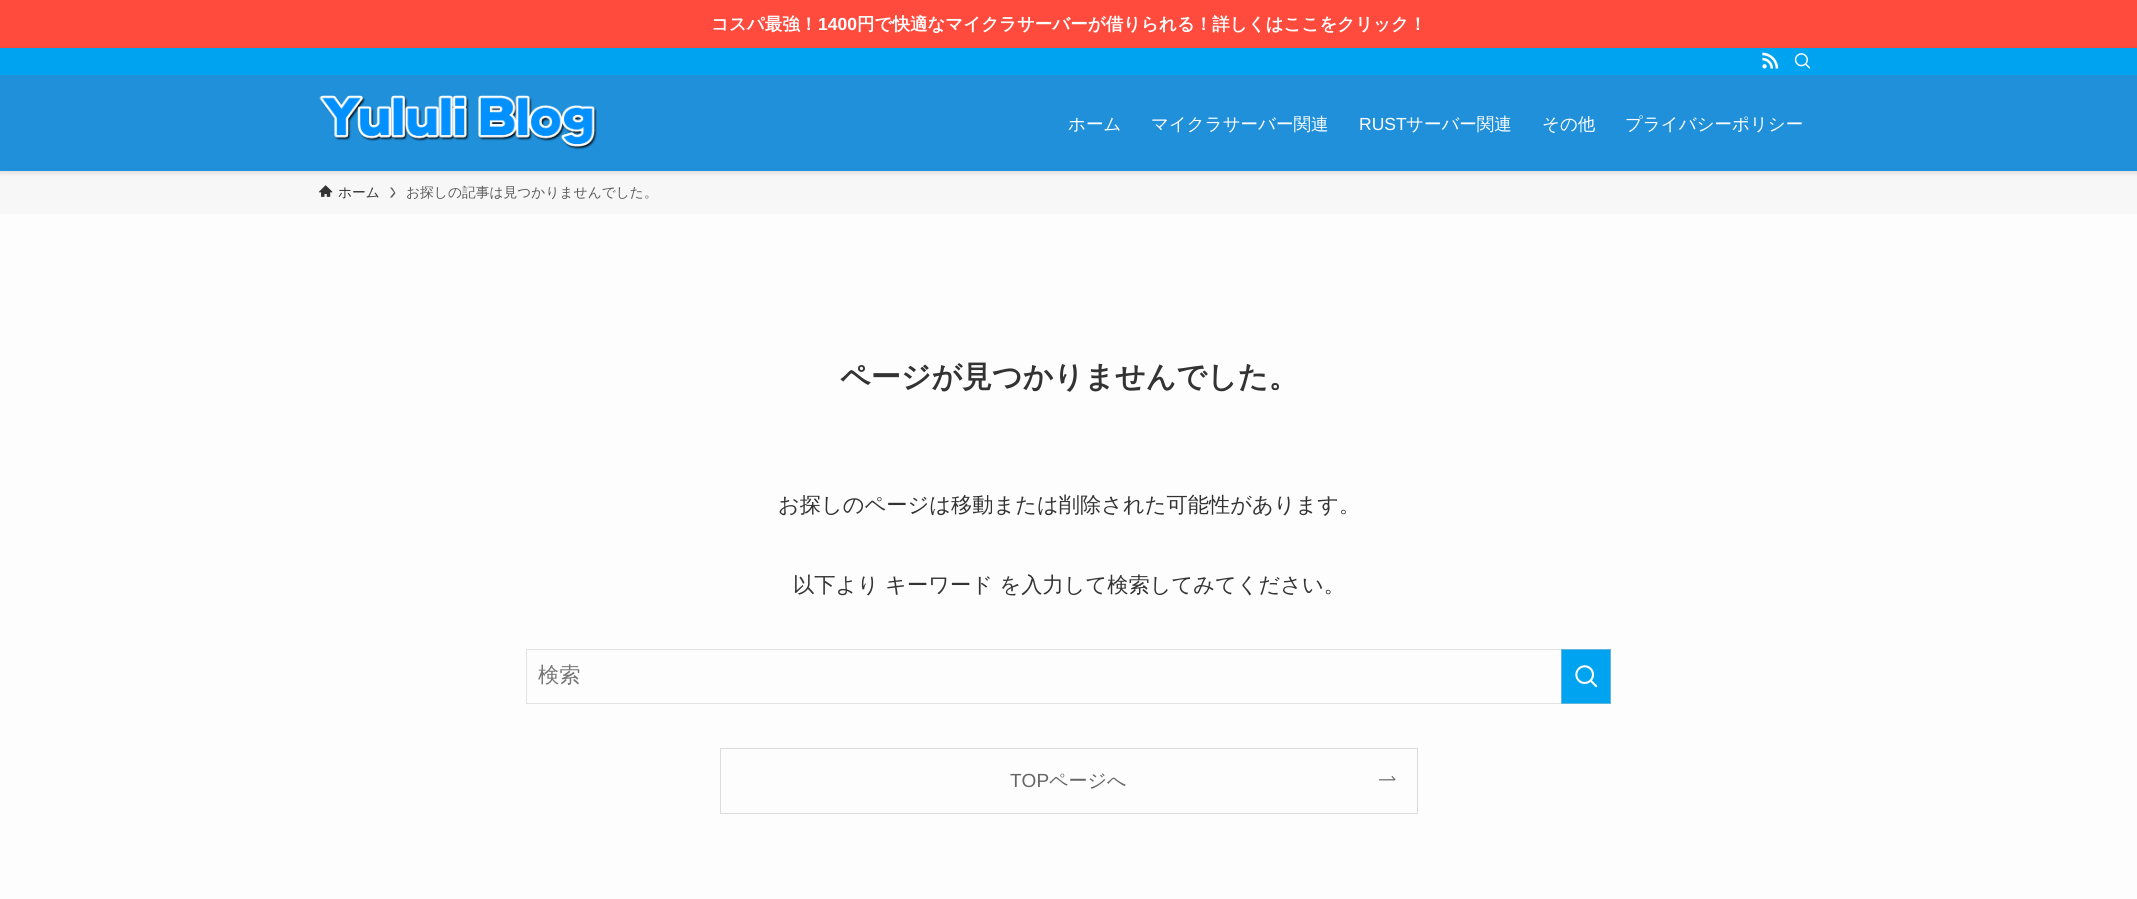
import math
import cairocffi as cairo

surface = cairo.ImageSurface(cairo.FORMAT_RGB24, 2137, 899)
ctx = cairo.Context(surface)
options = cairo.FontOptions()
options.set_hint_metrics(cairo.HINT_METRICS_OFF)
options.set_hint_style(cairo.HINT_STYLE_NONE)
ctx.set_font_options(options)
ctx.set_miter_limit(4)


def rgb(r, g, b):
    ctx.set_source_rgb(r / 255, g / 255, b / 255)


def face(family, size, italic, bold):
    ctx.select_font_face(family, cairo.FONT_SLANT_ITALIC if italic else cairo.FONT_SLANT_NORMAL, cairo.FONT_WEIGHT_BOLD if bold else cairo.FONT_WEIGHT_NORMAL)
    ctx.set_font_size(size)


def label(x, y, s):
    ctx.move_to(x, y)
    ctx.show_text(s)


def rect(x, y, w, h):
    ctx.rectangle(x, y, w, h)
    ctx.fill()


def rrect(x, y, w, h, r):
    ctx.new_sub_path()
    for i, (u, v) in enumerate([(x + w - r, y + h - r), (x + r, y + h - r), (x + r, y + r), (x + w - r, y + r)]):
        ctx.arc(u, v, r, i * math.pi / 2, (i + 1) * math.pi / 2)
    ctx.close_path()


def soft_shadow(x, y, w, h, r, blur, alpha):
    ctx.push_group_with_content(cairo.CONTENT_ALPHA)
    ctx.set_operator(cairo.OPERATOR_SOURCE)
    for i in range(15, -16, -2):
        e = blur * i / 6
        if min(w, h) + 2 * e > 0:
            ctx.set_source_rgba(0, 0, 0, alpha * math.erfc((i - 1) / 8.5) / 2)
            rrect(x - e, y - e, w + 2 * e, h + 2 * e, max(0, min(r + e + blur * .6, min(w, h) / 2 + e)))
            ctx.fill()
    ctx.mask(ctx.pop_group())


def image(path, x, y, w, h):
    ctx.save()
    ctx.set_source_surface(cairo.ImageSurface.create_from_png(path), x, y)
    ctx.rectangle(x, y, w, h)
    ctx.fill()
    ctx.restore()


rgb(253, 253, 253)
ctx.paint()
rgb(255, 75, 61)
rect(0, 0, 2137, 48)
face('WenQuanYi Zen Hei', 17.5, 0, 1)
rgb(255, 255, 255)
label(711, 30, 'コスパ最強！')
face('Liberation Sans', 17.5, 0, 1)
label(818, 30, '1400')
face('WenQuanYi Zen Hei', 17.5, 0, 1)
label(857, 30, '円で快適なマイクラサーバーが借りられる！詳しくはここをクリック！')
rgb(247, 247, 247)
rect(0, 171, 2137, 43)
rgb(0, 0, 0)
soft_shadow(0, 49, 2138, 124, 0, 2.5, 0.12)
rgb(32, 144, 219)
rect(0, 75, 2137, 96)
rgb(0, 163, 239)
rect(0, 48, 2137, 27)
image('image0.png', 1762, 52, 17, 17)
image('image1.png', 1794, 53, 17, 16)
image('image2.png', 319, 95, 278, 55)
face('WenQuanYi Zen Hei Medium', 17.5, 0, 0)
rgb(255, 255, 255)
label(1068, 130, 'ホーム')
label(1151, 130, 'マイクラサーバー関連')
face('Liberation Sans', 17.5, 0, 0)
label(1359, 130, 'RUST')
face('WenQuanYi Zen Hei Medium', 17.5, 0, 0)
label(1406, 130, 'サーバー関連')
label(1542, 130, 'その他')
label(1625, 130, 'プライバシーポリシー')
image('image3.png', 318, 185, 15, 12)
face('WenQuanYi Zen Hei Medium', 13.75, 0, 0)
rgb(51, 51, 51)
label(338, 197, 'ホーム')
rgb(90, 90, 90)
ctx.new_path()
ctx.move_to(392, 187.5)
ctx.line_to(390, 187.5)
ctx.line_to(394, 192.5)
ctx.line_to(390, 197.5)
ctx.line_to(392, 197.5)
ctx.line_to(395.5, 193)
ctx.close_path()
ctx.fill()
label(406, 197, 'お探しの記事は見つかりませんでした。')
face('WenQuanYi Zen Hei', 30, 0, 1)
rgb(51, 51, 51)
label(840, 387, 'ページが見つかりませんでした。')
face('WenQuanYi Zen Hei Medium', 21.25, 0, 0)
label(778, 512, 'お探しのページは移動または削除された可能性があります。')
label(793, 592, '以下より キーワード を入力して検索してみてください。')
ctx.rectangle(526.5, 649.5, 1084, 54)
rgb(227, 227, 227)
ctx.set_line_width(1)
ctx.stroke()
rgb(117, 117, 117)
label(538, 682, '検索')
rgb(0, 163, 239)
ctx.rectangle(1561.5, 649.5, 49, 54)
ctx.fill_preserve()
rgb(100, 181, 219)
ctx.stroke()
image('image4.png', 1575, 665, 23, 23)
ctx.rectangle(720.5, 748.5, 697, 65)
rgb(220, 220, 220)
ctx.stroke()
face('Liberation Sans', 19, 0, 0)
rgb(102, 102, 102)
label(1010, 787, 'TOP')
face('WenQuanYi Zen Hei Medium', 19, 0, 0)
label(1049, 787, 'ページへ')
image('image5.png', 1379, 775, 17, 6)
surface.write_to_png('render.png')
